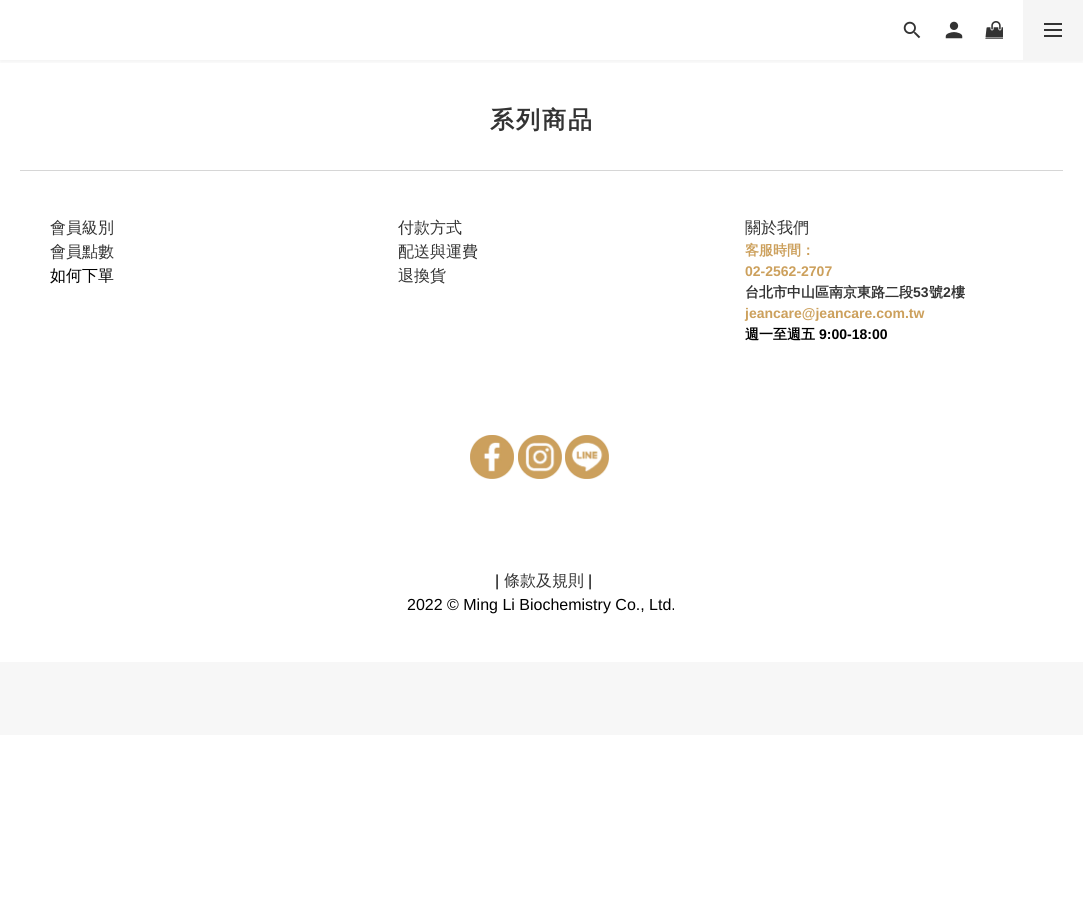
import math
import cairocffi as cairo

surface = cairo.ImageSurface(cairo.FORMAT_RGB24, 1083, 899)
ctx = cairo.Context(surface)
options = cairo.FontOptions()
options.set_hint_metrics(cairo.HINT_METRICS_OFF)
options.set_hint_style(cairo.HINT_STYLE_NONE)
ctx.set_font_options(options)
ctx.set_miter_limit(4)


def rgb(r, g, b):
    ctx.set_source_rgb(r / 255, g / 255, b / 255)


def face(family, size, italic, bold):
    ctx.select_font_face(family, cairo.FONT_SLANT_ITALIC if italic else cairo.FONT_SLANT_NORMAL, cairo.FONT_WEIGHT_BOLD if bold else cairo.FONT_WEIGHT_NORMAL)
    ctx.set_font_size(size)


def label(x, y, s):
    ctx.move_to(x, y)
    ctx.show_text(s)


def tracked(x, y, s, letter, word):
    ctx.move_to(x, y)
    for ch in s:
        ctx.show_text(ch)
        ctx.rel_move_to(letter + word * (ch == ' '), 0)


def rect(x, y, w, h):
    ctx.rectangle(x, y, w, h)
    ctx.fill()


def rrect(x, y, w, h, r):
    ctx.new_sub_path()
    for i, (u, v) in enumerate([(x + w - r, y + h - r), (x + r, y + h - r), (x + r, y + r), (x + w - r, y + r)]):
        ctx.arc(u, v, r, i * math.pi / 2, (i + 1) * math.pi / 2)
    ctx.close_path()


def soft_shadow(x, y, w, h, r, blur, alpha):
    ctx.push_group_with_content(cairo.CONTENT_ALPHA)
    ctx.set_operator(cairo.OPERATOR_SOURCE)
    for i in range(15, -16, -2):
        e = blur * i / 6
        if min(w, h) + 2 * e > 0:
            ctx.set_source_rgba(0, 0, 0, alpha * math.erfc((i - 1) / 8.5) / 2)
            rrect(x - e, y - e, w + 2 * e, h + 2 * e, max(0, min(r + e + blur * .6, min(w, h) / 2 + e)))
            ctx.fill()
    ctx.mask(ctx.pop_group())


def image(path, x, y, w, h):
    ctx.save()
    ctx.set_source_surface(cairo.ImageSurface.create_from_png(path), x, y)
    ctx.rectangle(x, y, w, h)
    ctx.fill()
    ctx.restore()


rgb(255, 255, 255)
ctx.paint()
ctx.save()
ctx.rectangle(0, 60, 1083, 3)
ctx.clip()
rgb(0, 0, 0)
soft_shadow(0, 2, 1083, 60, 0, 3, 0.06)
ctx.restore()
image('image0.png', 903, 21, 18, 18)
image('image1.png', 945, 21, 18, 18)
image('image2.png', 985, 21, 18, 18)
rgb(245, 245, 245)
rect(1023, 0, 60, 60)
rgb(51, 51, 51)
rect(1044, 29, 18, 2)
rect(1044, 23, 18, 2)
rect(1044, 35, 18, 2)
face('WenQuanYi Zen Hei', 24, 0, 1)
tracked(490, 128, '系列商品', 2, 0)
rgb(214, 214, 214)
rect(20, 170, 1043, 1)
face('WenQuanYi Zen Hei Medium', 16, 0, 0)
rgb(51, 51, 51)
label(50, 233, '會員級別')
label(50, 257, '會員點數')
rgb(0, 0, 0)
label(50, 281, '如何下單')
rgb(51, 51, 51)
label(398, 233, '付款方式')
label(398, 257, '配送與運費')
label(398, 281, '退換貨')
label(745, 233, '關於我們')
face('WenQuanYi Zen Hei', 14, 0, 1)
rgb(204, 160, 92)
label(745, 255, '客服時間：')
face('Liberation Sans', 14, 0, 1)
label(745, 276, '02-2562-2707')
face('WenQuanYi Zen Hei', 14, 0, 1)
rgb(51, 51, 51)
label(745, 297, '台北市中山區南京東路二段')
face('Liberation Sans', 14, 0, 1)
label(913, 297, '53')
face('WenQuanYi Zen Hei', 14, 0, 1)
label(929, 297, '號')
face('Liberation Sans', 14, 0, 1)
label(943, 297, '2')
face('WenQuanYi Zen Hei', 14, 0, 1)
label(951, 297, '樓')
face('Liberation Sans', 14, 0, 1)
rgb(204, 160, 92)
label(745, 318, 'jeancare@jeancare.com.tw')
face('WenQuanYi Zen Hei', 14, 0, 1)
rgb(0, 0, 0)
label(745, 339, '週一至週五')
face('Liberation Sans', 14, 0, 1)
label(819, 339, '9:00-18:00')
image('image3.png', 470, 435, 44, 44)
image('image4.png', 518, 435, 44, 44)
image('image5.png', 565, 435, 44, 44)
face('Liberation Sans', 16, 0, 0)
label(495, 586, '|')
face('WenQuanYi Zen Hei Medium', 16, 0, 0)
rgb(51, 51, 51)
label(504, 586, '條款及規則')
face('Liberation Sans', 16, 0, 0)
rgb(0, 0, 0)
label(588, 586, '|')
label(407, 610, '2022 © Ming Li Biochemistry Co., Ltd.')
rgb(247, 247, 247)
rect(0, 662, 1083, 73)
surface.write_to_png('render.png')
